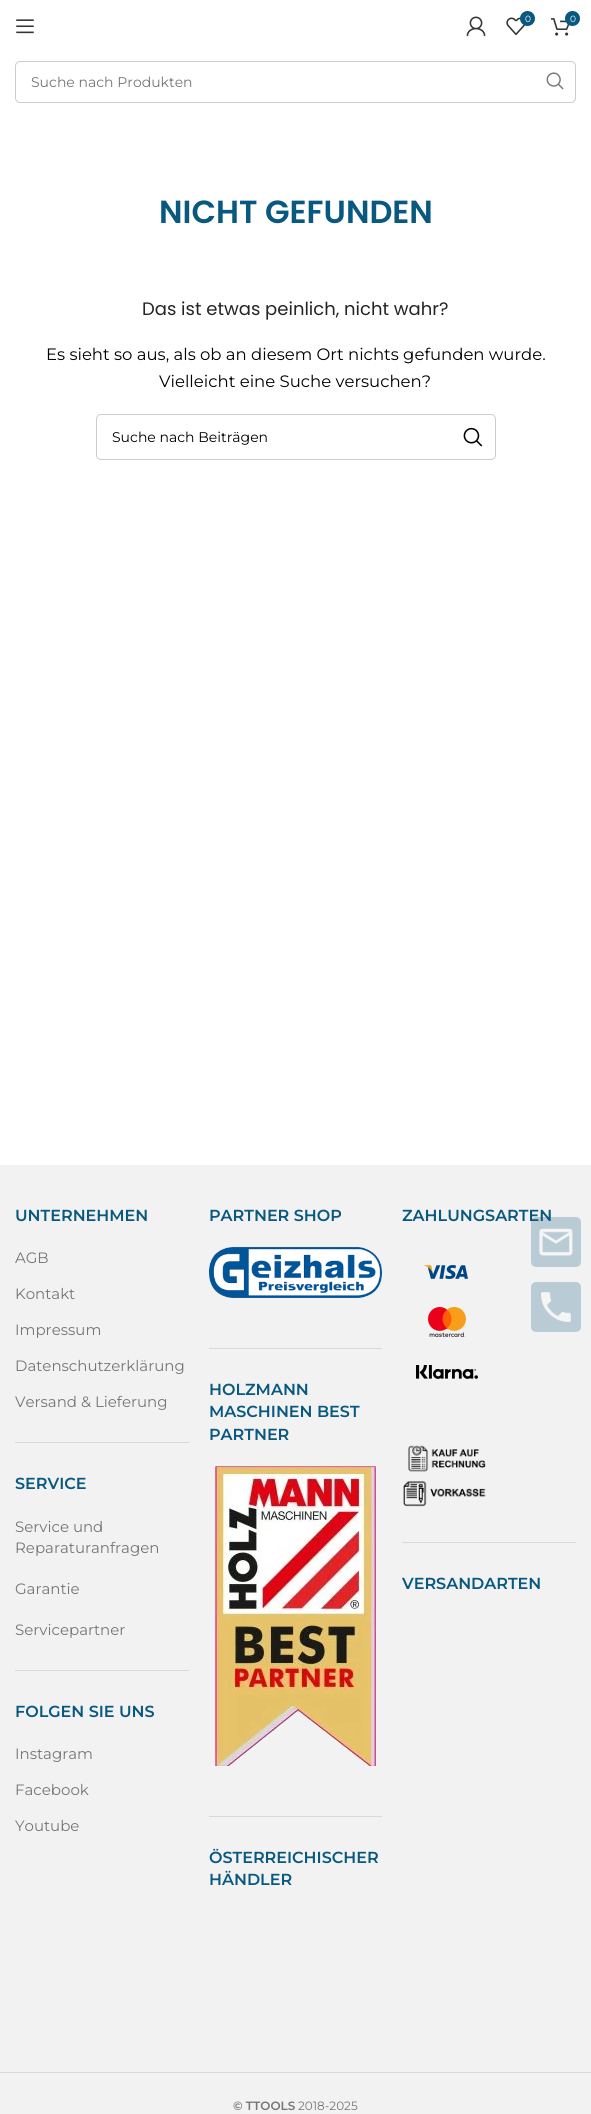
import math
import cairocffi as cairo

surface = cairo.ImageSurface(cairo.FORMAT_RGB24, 591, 2114)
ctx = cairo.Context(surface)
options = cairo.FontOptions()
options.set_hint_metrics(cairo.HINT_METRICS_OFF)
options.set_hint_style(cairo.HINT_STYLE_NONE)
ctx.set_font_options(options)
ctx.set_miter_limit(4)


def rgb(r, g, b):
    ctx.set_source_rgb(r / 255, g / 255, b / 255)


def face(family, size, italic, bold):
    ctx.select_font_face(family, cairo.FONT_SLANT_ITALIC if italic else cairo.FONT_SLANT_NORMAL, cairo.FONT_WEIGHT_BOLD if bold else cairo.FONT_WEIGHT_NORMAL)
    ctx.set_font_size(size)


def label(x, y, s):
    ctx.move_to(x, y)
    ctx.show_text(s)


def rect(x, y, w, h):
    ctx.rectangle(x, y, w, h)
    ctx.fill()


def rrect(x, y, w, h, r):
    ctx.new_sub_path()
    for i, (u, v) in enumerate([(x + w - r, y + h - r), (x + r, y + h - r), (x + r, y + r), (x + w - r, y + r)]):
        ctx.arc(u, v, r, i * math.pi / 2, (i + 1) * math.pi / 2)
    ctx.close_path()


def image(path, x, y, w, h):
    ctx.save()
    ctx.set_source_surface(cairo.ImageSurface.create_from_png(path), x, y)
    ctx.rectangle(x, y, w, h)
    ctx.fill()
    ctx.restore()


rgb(255, 255, 255)
ctx.paint()
image('image0.png', 16, 19, 18, 15)
image('image1.png', 466, 16, 20, 20)
image('image2.png', 506, 17, 20, 18)
rgb(9, 88, 128)
ctx.arc(527.5, 18.5, 7.5, 0, 2 * math.pi)
ctx.fill()
face('Montserrat', 9, 0, 0)
rgb(255, 255, 255)
label(525, 22, '0')
image('image3.png', 551, 18, 19, 18)
rgb(9, 88, 128)
ctx.arc(572.5, 18.5, 7.5, 0, 2 * math.pi)
ctx.fill()
rgb(255, 255, 255)
label(570, 22, '0')
rrect(15.5, 61.5, 560, 41, 4.5)
rgb(204, 204, 204)
ctx.set_line_width(1)
ctx.stroke()
face('Montserrat', 14, 0, 0)
rgb(118, 118, 118)
label(31, 87, 'Suche nach Produkten')
image('image4.png', 546, 72, 18, 18)
face('Poppins SemiBold', 32, 0, 0)
rgb(9, 88, 128)
label(159, 223, 'NICHT GEFUNDEN')
face('Poppins', 18, 0, 0)
rgb(36, 36, 36)
label(142, 315, 'Das ist etwas peinlich, nicht wahr?')
face('Montserrat', 16.5, 0, 0)
rgb(0, 0, 0)
label(46, 360, 'Es sieht so aus, als ob an diesem Ort nichts gefunden wurde.')
label(159, 387, 'Vielleicht eine Suche versuchen?')
rrect(96.5, 414.5, 399, 45, 4.5)
rgb(204, 204, 204)
ctx.stroke()
face('Montserrat', 14, 0, 0)
rgb(0, 0, 0)
label(112, 442, 'Suche nach Beiträgen')
image('image5.png', 463, 427, 20, 20)
rgb(242, 242, 242)
rect(0, 1165, 591, 949)
rgb(216, 216, 216)
rect(15, 1442, 174, 1)
face('Montserrat SemiBold', 16, 0, 0)
rgb(9, 88, 128)
label(15, 1221, 'UNTERNEHMEN')
face('Montserrat', 15, 0, 0)
rgb(118, 118, 118)
label(15, 1263, 'AGB')
label(15, 1299, 'Kontakt')
label(15, 1335, 'Impressum')
label(15, 1371, 'Datenschutzerklärung')
label(15, 1407, 'Versand & Lieferung')
rgb(216, 216, 216)
rect(15, 1670, 174, 1)
face('Montserrat SemiBold', 16, 0, 0)
rgb(9, 88, 128)
label(15, 1489, 'SERVICE')
face('Montserrat', 15, 0, 0)
rgb(118, 118, 118)
label(15, 1532, 'Service und')
label(15, 1553, 'Reparaturanfragen')
label(15, 1594, 'Garantie')
label(15, 1635, 'Servicepartner')
face('Montserrat SemiBold', 16, 0, 0)
rgb(9, 88, 128)
label(15, 1717, 'FOLGEN SIE UNS')
face('Montserrat', 15, 0, 0)
rgb(118, 118, 118)
label(15, 1759, 'Instagram')
label(15, 1795, 'Facebook')
label(15, 1831, 'Youtube')
rgb(216, 216, 216)
rect(209, 1348, 173, 1)
face('Montserrat SemiBold', 16, 0, 0)
rgb(9, 88, 128)
label(209, 1221, 'PARTNER SHOP')
image('image6.png', 209, 1247, 173, 51)
rgb(216, 216, 216)
rect(209, 1816, 173, 1)
rgb(9, 88, 128)
label(209, 1395, 'HOLZMANN')
label(209, 1417, 'MASCHINEN BEST')
label(209, 1440, 'PARTNER')
image('image7.png', 215, 1466, 161, 300)
label(209, 1863, 'ÖSTERREICHISCHER')
label(209, 1885, 'HÄNDLER')
rgb(216, 216, 216)
rect(402, 1542, 174, 1)
rgb(9, 88, 128)
label(402, 1221, 'ZAHLUNGSARTEN')
image('image8.png', 424, 1265, 44, 14)
image('image9.png', 428, 1307, 38, 30)
image('image10.png', 416, 1365, 62, 14)
image('image11.png', 408, 1445, 78, 27)
image('image12.png', 403, 1481, 83, 26)
label(402, 1589, 'VERSANDARTEN')
rgb(216, 216, 216)
rect(0, 2072, 591, 1)
face('Montserrat SemiBold', 12, 0, 0)
rgb(118, 118, 118)
label(233, 2110, '© TTOOLS')
face('Montserrat', 12, 0, 0)
label(298, 2110, '2018-2025')
image('image13.png', 531, 1217, 50, 50)
image('image14.png', 531, 1282, 50, 50)
surface.write_to_png('render.png')
